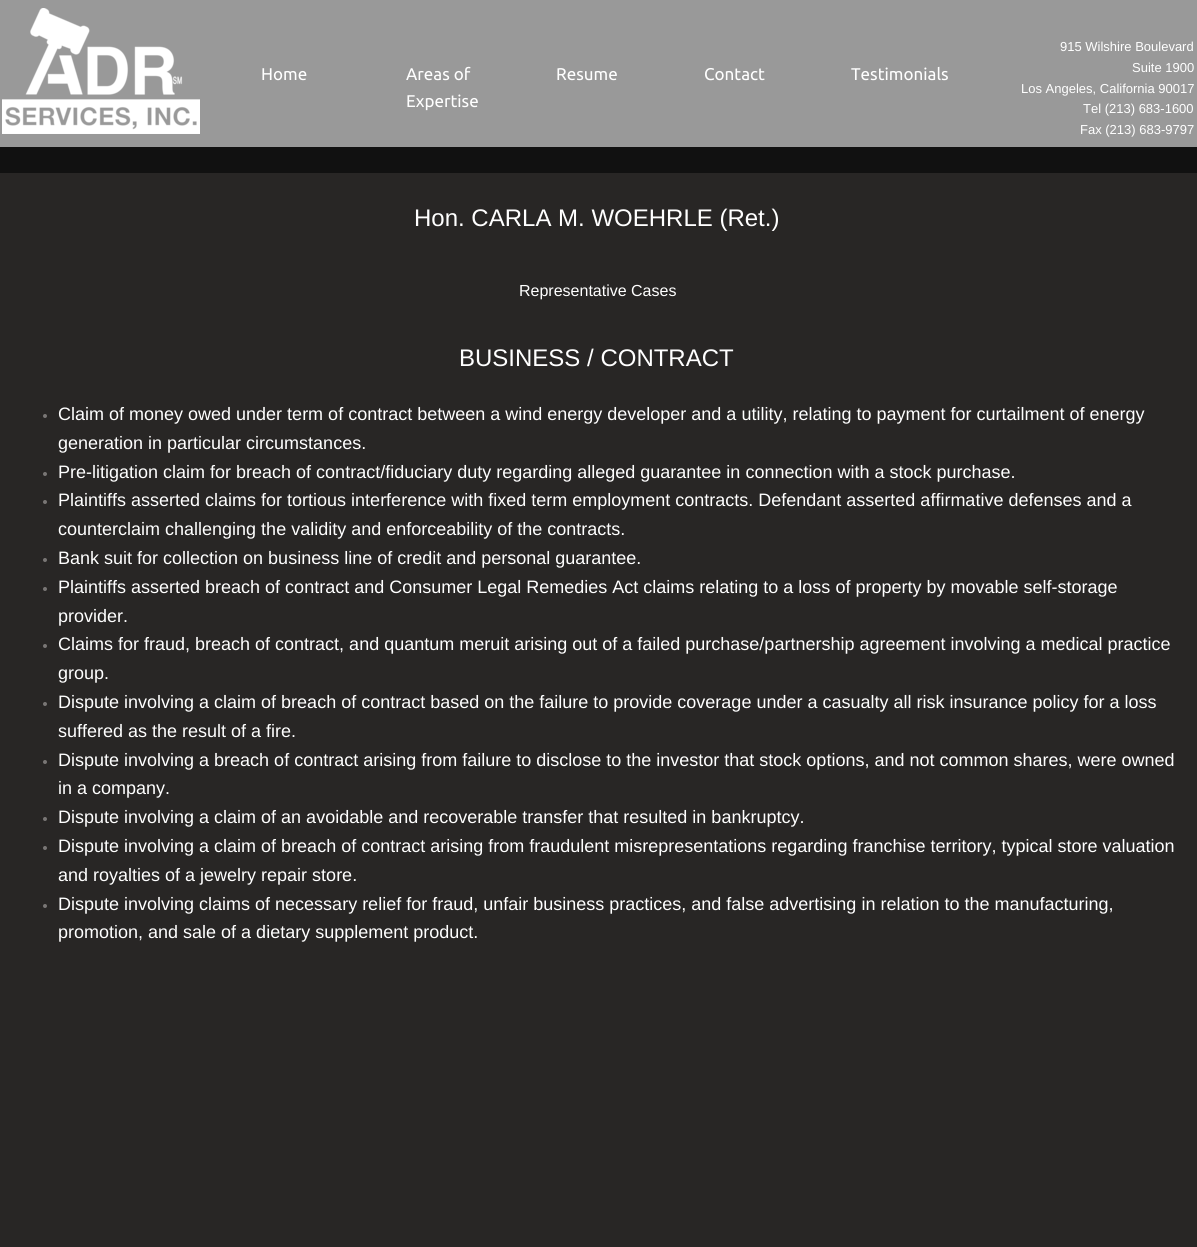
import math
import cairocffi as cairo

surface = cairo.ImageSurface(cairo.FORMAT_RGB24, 1197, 1247)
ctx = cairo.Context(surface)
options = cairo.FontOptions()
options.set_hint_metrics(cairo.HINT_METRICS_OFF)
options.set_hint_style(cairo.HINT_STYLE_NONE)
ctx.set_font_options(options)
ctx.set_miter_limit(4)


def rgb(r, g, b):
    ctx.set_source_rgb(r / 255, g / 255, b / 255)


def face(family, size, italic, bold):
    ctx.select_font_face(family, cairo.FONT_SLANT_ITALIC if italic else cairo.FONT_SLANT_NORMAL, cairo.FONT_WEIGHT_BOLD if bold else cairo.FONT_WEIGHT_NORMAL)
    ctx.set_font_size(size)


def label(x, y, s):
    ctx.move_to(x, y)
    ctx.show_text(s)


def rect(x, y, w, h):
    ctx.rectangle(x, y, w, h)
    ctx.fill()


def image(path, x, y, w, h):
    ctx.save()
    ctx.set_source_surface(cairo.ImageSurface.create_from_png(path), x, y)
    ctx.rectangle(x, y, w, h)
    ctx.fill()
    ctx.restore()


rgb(153, 153, 153)
ctx.paint()
rgb(40, 38, 37)
rect(0, 173, 1197, 1074)
image('image0.png', 2, 8, 198, 126)
face('Ubuntu', 17, 0, 0)
rgb(255, 255, 255)
label(261, 80, 'Home')
label(406, 80, 'Areas of')
label(406, 107, 'Expertise')
label(556, 80, 'Resume')
label(704, 80, 'Contact')
label(851, 80, 'Testimonials')
face('Liberation Sans', 13, 0, 0)
label(1060, 51, '915 Wilshire Boulevard')
label(1132, 72, 'Suite 1900')
label(1021, 93, 'Los Angeles, California 90017')
label(1083, 113, 'Tel (213) 683-1600')
label(1080, 134, 'Fax (213) 683-9797')
rgb(17, 17, 17)
rect(0, 147, 1197, 26)
face('Liberation Sans', 24, 0, 0)
rgb(255, 255, 255)
label(414, 226, 'Hon. CARLA M. WOEHRLE (Ret.)')
face('Liberation Sans', 16, 0, 0)
label(519, 296, 'Representative Cases')
face('Liberation Sans', 24, 0, 0)
label(459, 366, 'BUSINESS / CONTRACT')
rgb(121, 118, 117)
ctx.new_path()
ctx.arc(45, 416, 2, 0, 2 * math.pi)
ctx.fill()
face('Liberation Sans', 18, 0, 0)
rgb(255, 255, 255)
label(58, 420, 'Claim of money owed under term of contract between a wind energy developer and a utility, relating to payment for curtailment of energy')
label(58, 449, 'generation in particular circumstances.')
rgb(121, 118, 117)
ctx.new_path()
ctx.arc(45, 474, 2, 0, 2 * math.pi)
ctx.fill()
rgb(255, 255, 255)
label(58, 478, 'Pre-litigation claim for breach of contract/fiduciary duty regarding alleged guarantee in connection with a stock purchase.')
rgb(121, 118, 117)
ctx.new_path()
ctx.arc(45, 502, 2, 0, 2 * math.pi)
ctx.fill()
rgb(255, 255, 255)
label(58, 506, 'Plaintiffs asserted claims for tortious interference with fixed term employment contracts. Defendant asserted affirmative defenses and a')
label(58, 535, 'counterclaim challenging the validity and enforceability of the contracts.')
rgb(121, 118, 117)
ctx.new_path()
ctx.arc(45, 560, 2, 0, 2 * math.pi)
ctx.fill()
rgb(255, 255, 255)
label(58, 564, 'Bank suit for collection on business line of credit and personal guarantee.')
rgb(121, 118, 117)
ctx.new_path()
ctx.arc(45, 589, 2, 0, 2 * math.pi)
ctx.fill()
rgb(255, 255, 255)
label(58, 593, 'Plaintiffs asserted breach of contract and Consumer Legal Remedies Act claims relating to a loss of property by movable self-storage')
label(58, 622, 'provider.')
rgb(121, 118, 117)
ctx.new_path()
ctx.arc(45, 646, 2, 0, 2 * math.pi)
ctx.fill()
rgb(255, 255, 255)
label(58, 650, 'Claims for fraud, breach of contract, and quantum meruit arising out of a failed purchase/partnership agreement involving a medical practice')
label(58, 679, 'group.')
rgb(121, 118, 117)
ctx.new_path()
ctx.arc(45, 704, 2, 0, 2 * math.pi)
ctx.fill()
rgb(255, 255, 255)
label(58, 708, 'Dispute involving a claim of breach of contract based on the failure to provide coverage under a casualty all risk insurance policy for a loss')
label(58, 737, 'suffered as the result of a fire.')
rgb(121, 118, 117)
ctx.new_path()
ctx.arc(45, 762, 2, 0, 2 * math.pi)
ctx.fill()
rgb(255, 255, 255)
label(58, 766, 'Dispute involving a breach of contract arising from failure to disclose to the investor that stock options, and not common shares, were owned')
label(58, 794, 'in a company.')
rgb(121, 118, 117)
ctx.new_path()
ctx.arc(45, 819, 2, 0, 2 * math.pi)
ctx.fill()
rgb(255, 255, 255)
label(58, 823, 'Dispute involving a claim of an avoidable and recoverable transfer that resulted in bankruptcy.')
rgb(121, 118, 117)
ctx.new_path()
ctx.arc(45, 848, 2, 0, 2 * math.pi)
ctx.fill()
rgb(255, 255, 255)
label(58, 852, 'Dispute involving a claim of breach of contract arising from fraudulent misrepresentations regarding franchise territory, typical store valuation')
label(58, 881, 'and royalties of a jewelry repair store.')
rgb(121, 118, 117)
ctx.new_path()
ctx.arc(45, 906, 2, 0, 2 * math.pi)
ctx.fill()
rgb(255, 255, 255)
label(58, 910, 'Dispute involving claims of necessary relief for fraud, unfair business practices, and false advertising in relation to the manufacturing,')
label(58, 938, 'promotion, and sale of a dietary supplement product.')
surface.write_to_png('render.png')
